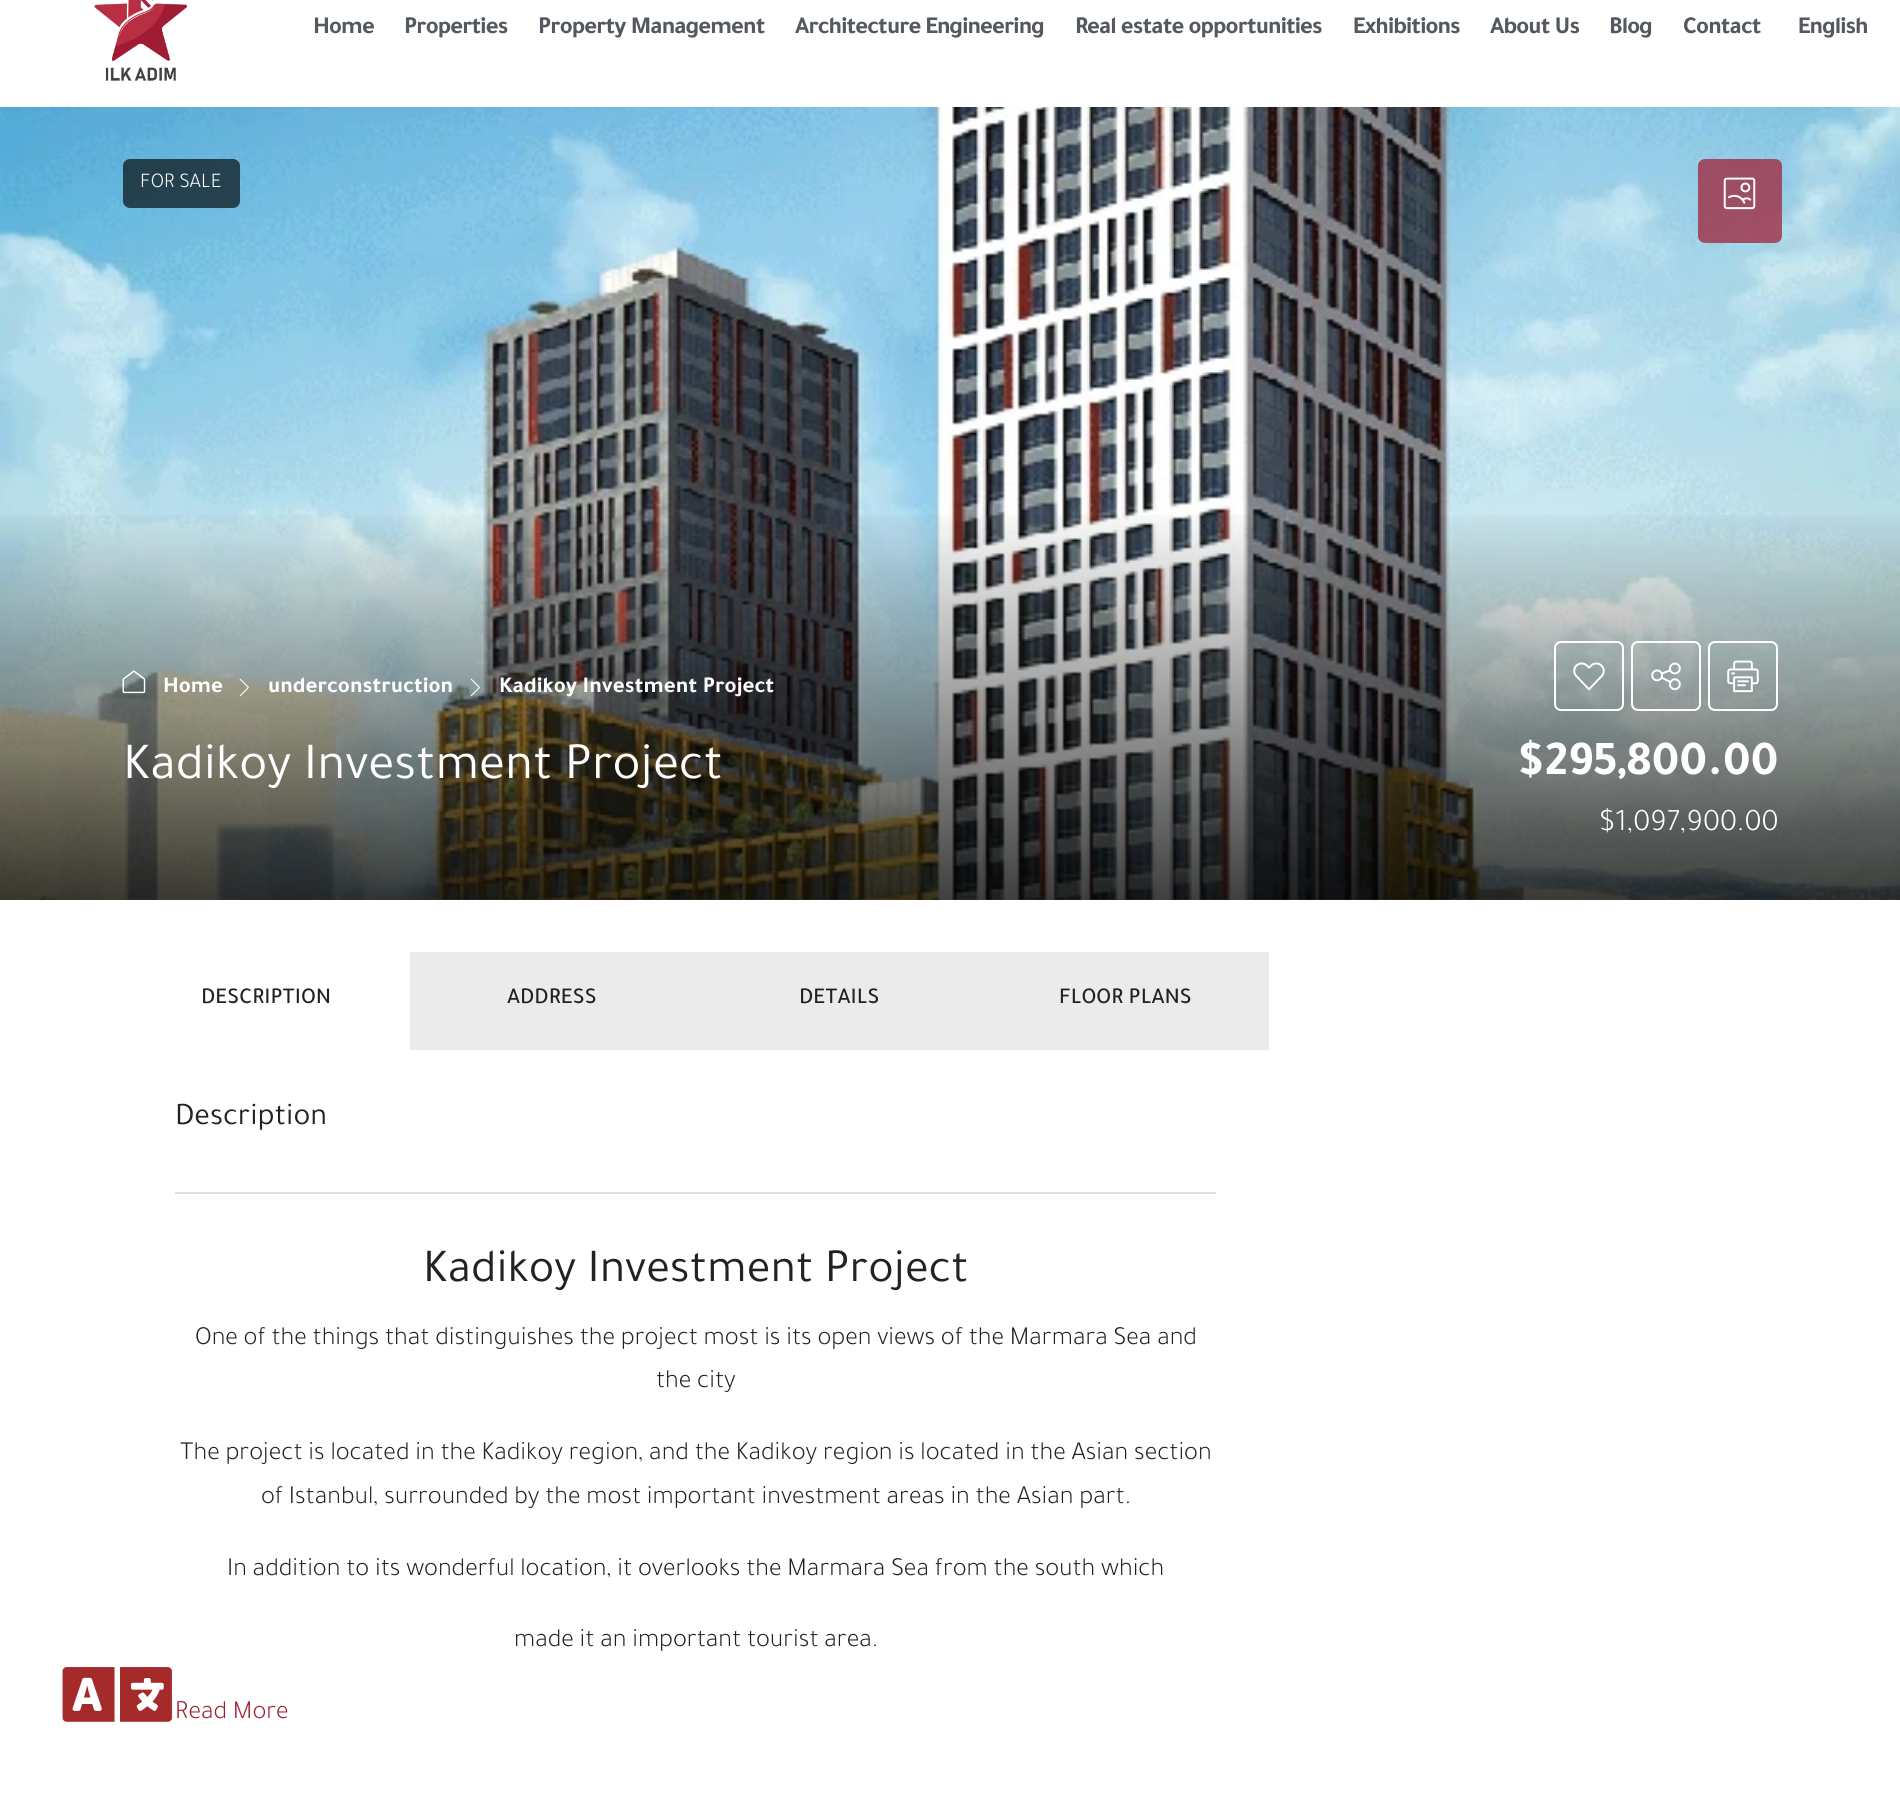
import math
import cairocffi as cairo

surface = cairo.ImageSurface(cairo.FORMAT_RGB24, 1900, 1808)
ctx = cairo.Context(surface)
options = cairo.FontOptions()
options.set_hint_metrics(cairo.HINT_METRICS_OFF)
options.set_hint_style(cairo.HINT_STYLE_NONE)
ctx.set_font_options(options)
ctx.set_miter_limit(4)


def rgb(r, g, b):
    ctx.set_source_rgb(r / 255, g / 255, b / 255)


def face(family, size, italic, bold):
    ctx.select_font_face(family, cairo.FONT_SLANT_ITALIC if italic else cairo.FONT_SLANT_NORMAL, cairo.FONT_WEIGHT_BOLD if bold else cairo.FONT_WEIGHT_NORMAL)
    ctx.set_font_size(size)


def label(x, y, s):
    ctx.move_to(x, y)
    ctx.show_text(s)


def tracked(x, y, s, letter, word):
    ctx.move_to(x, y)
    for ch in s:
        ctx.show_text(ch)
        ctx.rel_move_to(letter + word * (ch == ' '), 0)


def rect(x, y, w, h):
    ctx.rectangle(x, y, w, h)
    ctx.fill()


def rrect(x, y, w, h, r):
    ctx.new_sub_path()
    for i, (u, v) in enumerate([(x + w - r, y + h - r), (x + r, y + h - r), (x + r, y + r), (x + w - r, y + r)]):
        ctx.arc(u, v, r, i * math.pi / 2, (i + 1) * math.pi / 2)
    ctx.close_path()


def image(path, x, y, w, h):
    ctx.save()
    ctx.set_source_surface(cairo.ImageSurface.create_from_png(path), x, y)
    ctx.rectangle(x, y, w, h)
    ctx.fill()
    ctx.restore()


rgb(255, 255, 255)
ctx.paint()
image('image0.png', 62, 1667, 110, 55)
image('image1.png', 94, 0, 94, 81)
face('Tajawal', 24.5, 0, 1)
rgb(84, 89, 95)
tracked(313, 33, 'Home', -0.9, 0)
tracked(404, 33, 'Properties', -0.9, 0)
tracked(538, 33, 'Property Management', -0.9, 0)
tracked(795, 33, 'Architecture Engineering', -0.9, 0)
tracked(1075, 33, 'Real estate opportunities', -0.9, 0)
tracked(1353, 33, 'Exhibitions', -0.9, 0)
tracked(1490, 33, 'About Us', -0.9, 0)
tracked(1609, 33, 'Blog', -0.9, 0)
tracked(1683, 33, 'Contact', -0.9, 0)
tracked(1798, 33, 'English', -0.9, 0)
image('image3.png', 0, 107, 1900, 793)
ctx.set_source_rgba(0.624, 0.11, 0.2, 0.72)
rrect(1698, 159, 84, 84, 7)
ctx.fill()
image('image2.png', 1723, 177, 33, 33)
ctx.set_source_rgba(0, 0, 0, 0.65)
rrect(123, 159, 117, 49, 7)
ctx.fill()
face('Tajawal Light', 21, 0, 0)
rgb(255, 255, 255)
label(140, 187, 'FOR SALE')
gradient = cairo.LinearGradient(950, 107, 950, 900)
gradient.add_color_stop_rgba(0, 1, 1, 1, 0)
gradient.add_color_stop_rgba(0.5, 0, 0, 0, 0)
gradient.add_color_stop_rgba(1, 0, 0, 0, 0.75)
ctx.set_source(gradient)
rect(0, 515, 1900, 385)
image('image4.png', 122, 670, 24, 24)
face('Tajawal', 22.75, 0, 1)
rgb(255, 255, 255)
label(163, 692, 'Home')
image('image5.png', 239, 678, 10, 19)
label(268, 692, 'underconstruction')
image('image6.png', 470, 678, 10, 19)
label(499, 692, 'Kadikoy Investment Project')
rrect(1555, 642, 68, 68, 6)
ctx.stroke()
image('image7.png', 1573, 662, 32, 29)
rrect(1632, 642, 68, 68, 6)
ctx.stroke()
image('image8.png', 1651, 662, 30, 29)
rrect(1709, 642, 68, 68, 6)
ctx.stroke()
image('image9.png', 1727, 660, 32, 33)
face('Tajawal', 52.5, 0, 0)
label(123, 778, 'Kadikoy Investment Project')
face('Tajawal', 49, 0, 1)
label(1517, 774, '$295,800.00')
face('Tajawal Light', 31.5, 0, 0)
label(1599, 830, '$1,097,900.00')
face('Tajawal Medium', 22.75, 0, 0)
rgb(34, 34, 34)
label(201, 1003, 'DESCRIPTION')
rgb(235, 235, 235)
rect(410, 952, 859, 98)
rgb(34, 34, 34)
label(507, 1003, 'ADDRESS')
label(799, 1003, 'DETAILS')
label(1059, 1003, 'FLOOR PLANS')
rgb(220, 224, 224)
rect(175, 1192, 1041, 2)
face('Tajawal', 31.5, 0, 0)
rgb(34, 34, 34)
label(175, 1124, 'Description')
face('Tajawal', 47.75, 0, 0)
label(423, 1281, 'Kadikoy Investment Project')
face('Tajawal Light', 26.25, 0, 0)
label(195, 1344, 'One of the things that distinguishes the project most is its open views of the Marmara Sea and')
label(656, 1387, 'the city')
label(180, 1459, 'The project is located in the Kadikoy region, and the Kadikoy region is located in the Asian section')
label(261, 1503, 'of Istanbul, surrounded by the most important investment areas in the Asian part.')
label(227, 1575, 'In addition to its wonderful location, it overlooks the Marmara Sea from the south which')
label(514, 1646, 'made it an important tourist area.')
rgb(159, 28, 51)
label(175, 1718, 'Read More')
surface.write_to_png('render.png')
